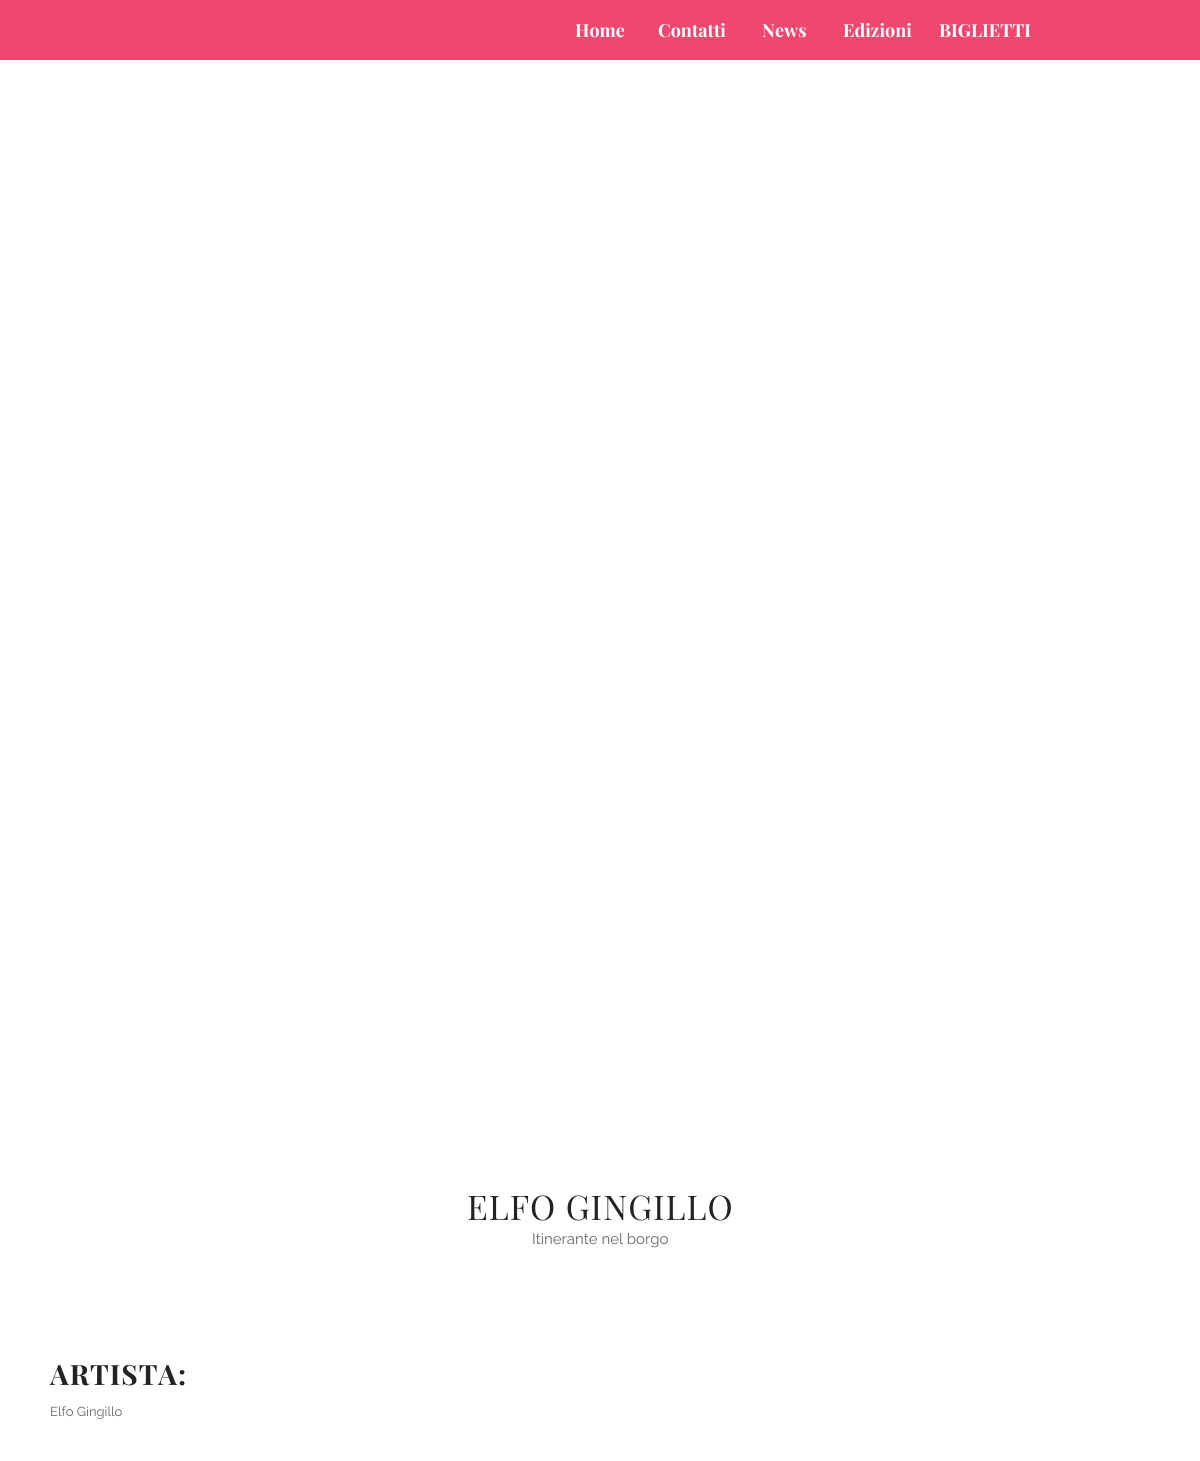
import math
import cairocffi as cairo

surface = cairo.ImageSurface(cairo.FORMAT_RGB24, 1200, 1461)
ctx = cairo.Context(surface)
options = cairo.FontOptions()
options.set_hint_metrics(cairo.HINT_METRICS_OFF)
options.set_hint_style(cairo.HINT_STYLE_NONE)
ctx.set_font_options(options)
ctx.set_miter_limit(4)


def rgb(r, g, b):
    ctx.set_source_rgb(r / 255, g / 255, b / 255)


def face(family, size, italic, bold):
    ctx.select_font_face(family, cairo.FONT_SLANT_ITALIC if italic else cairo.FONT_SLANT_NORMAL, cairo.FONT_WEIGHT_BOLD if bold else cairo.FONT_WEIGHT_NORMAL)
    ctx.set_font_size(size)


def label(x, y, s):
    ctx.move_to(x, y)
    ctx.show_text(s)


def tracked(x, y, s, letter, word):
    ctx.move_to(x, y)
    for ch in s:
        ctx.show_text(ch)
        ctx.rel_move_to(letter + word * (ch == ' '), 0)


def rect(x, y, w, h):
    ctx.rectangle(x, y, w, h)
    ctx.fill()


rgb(255, 255, 255)
ctx.paint()
rgb(239, 71, 110)
rect(0, 0, 1200, 60)
face('Playfair Display', 18, 0, 1)
rgb(255, 255, 255)
label(575, 37, 'Home')
label(658, 37, 'Contatti')
label(762, 37, 'News')
label(843, 37, 'Edizioni')
label(939, 37, 'BIGLIETTI')
face('Playfair Display', 34, 0, 0)
rgb(34, 34, 34)
tracked(467, 1220, 'ELFO GINGILLO', 1, 0)
face('Raleway Thin', 15, 0, 0)
rgb(102, 102, 102)
label(532, 1244, 'Itinerante nel borgo')
face('Playfair Display', 28, 0, 1)
rgb(34, 34, 34)
tracked(50, 1385, 'ARTISTA:', 1, 0)
face('Raleway Thin', 13, 0, 0)
rgb(102, 102, 102)
label(50, 1416, 'Elfo Gingillo')
surface.write_to_png('render.png')
